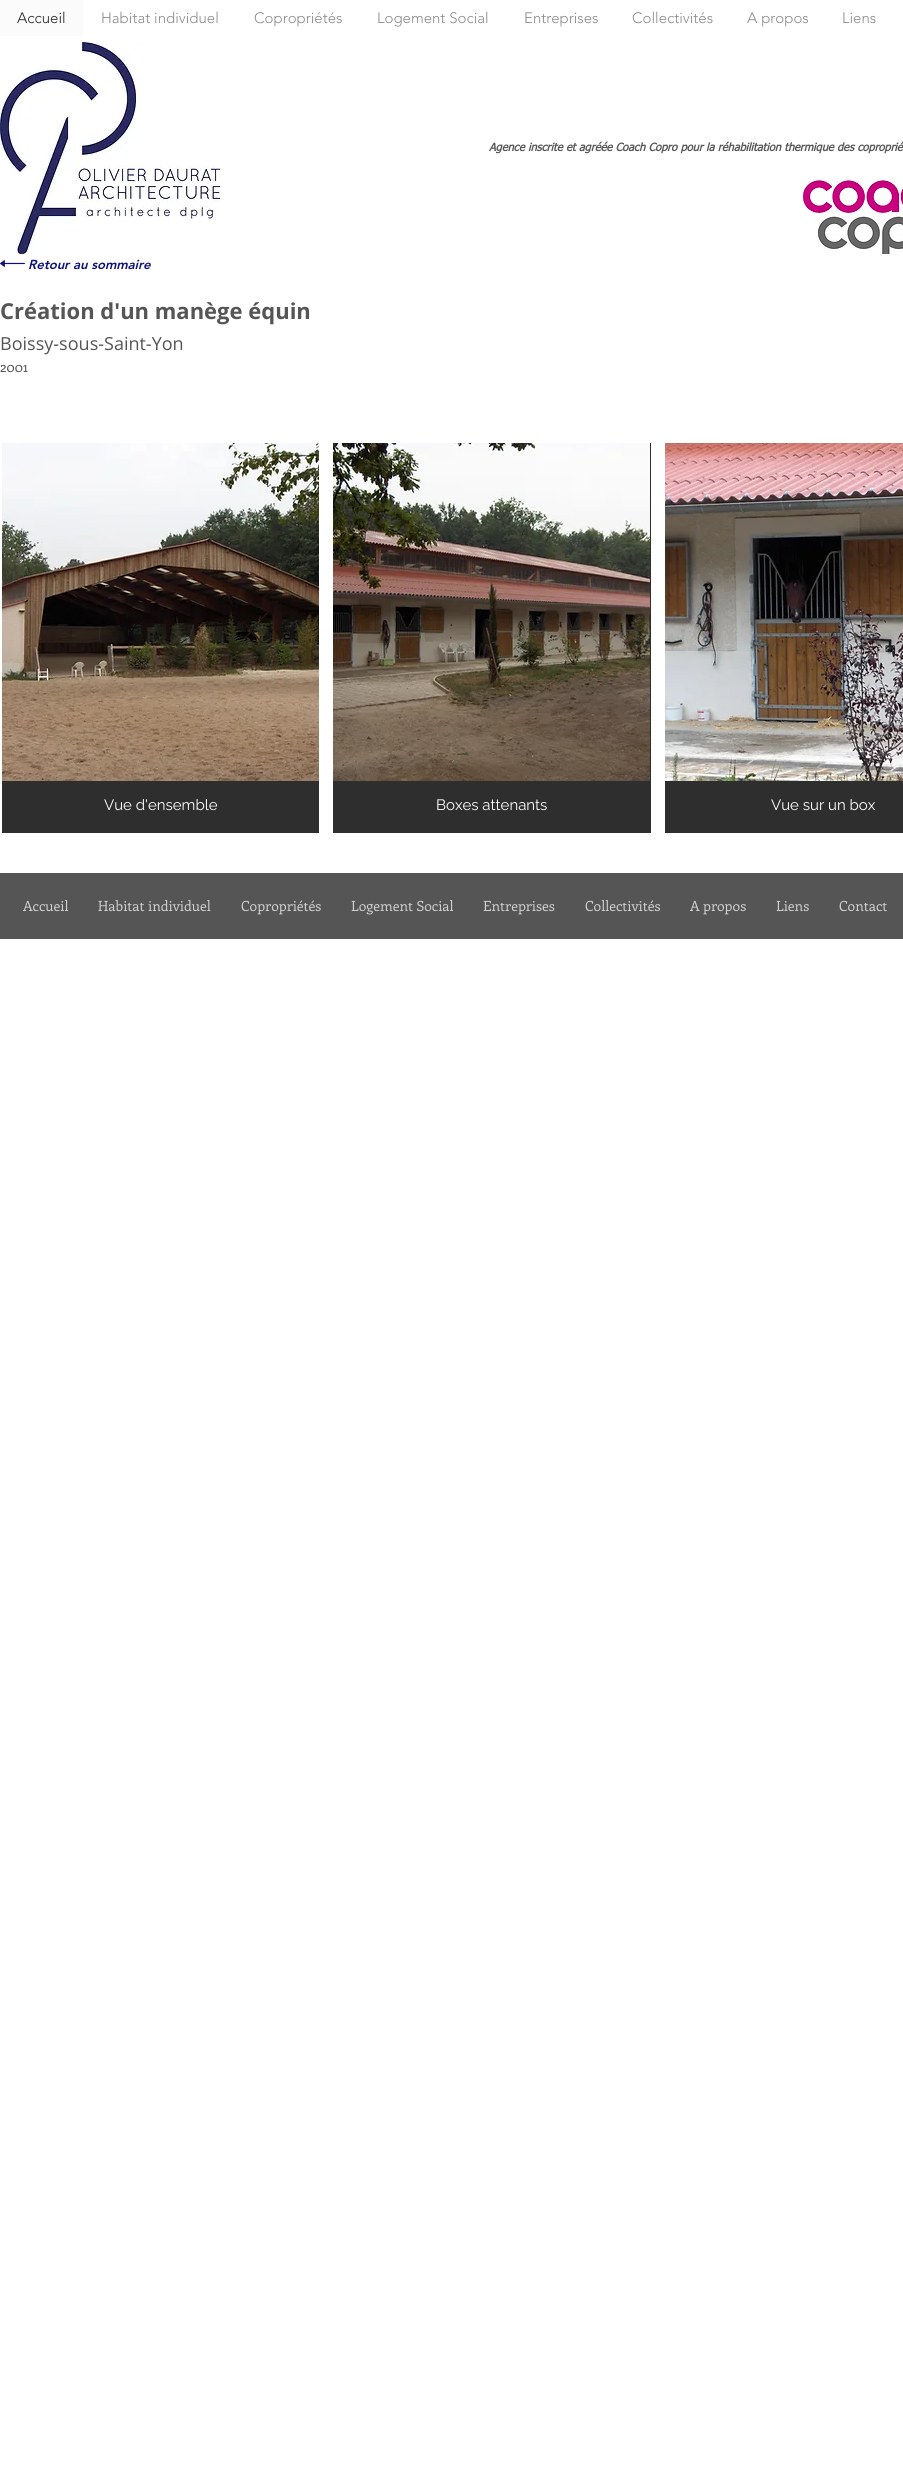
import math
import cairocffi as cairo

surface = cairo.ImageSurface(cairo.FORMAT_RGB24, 903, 2475)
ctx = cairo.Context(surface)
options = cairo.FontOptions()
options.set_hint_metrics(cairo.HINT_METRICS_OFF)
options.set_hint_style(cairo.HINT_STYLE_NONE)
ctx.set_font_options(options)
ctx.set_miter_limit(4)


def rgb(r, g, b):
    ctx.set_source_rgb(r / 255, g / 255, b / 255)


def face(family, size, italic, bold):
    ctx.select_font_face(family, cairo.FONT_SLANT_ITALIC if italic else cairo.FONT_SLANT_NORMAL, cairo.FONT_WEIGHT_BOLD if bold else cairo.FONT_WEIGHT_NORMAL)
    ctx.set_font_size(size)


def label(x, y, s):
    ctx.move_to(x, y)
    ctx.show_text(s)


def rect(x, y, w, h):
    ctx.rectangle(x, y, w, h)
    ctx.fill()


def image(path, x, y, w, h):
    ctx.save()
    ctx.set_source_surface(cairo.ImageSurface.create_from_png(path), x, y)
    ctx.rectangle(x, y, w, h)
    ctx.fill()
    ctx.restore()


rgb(255, 255, 255)
ctx.paint()
rgb(251, 251, 251)
rect(0, 0, 83, 36)
face('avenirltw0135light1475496 Light', 15, 0, 0)
rgb(36, 36, 36)
label(17, 23, 'Accueil')
rgb(139, 139, 139)
label(101, 23, 'Habitat individuel')
label(254, 23, 'Copropriétés')
label(377, 23, 'Logement Social')
label(524, 23, 'Entreprises')
label(632, 23, 'Collectivités')
label(747, 23, 'A propos')
label(842, 23, 'Liens')
image('image0.png', 0, 42, 220, 212)
face('tahoma', 11, 1, 1)
rgb(85, 85, 85)
label(489, 151, 'Agence inscrite et agréée Coach Copro pour la réhabilitation thermique des coproprié')
image('image1.png', 803, 180, 100, 74)
image('image2.png', 0, 260, 25, 7)
face('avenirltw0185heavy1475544 Black', 13, 1, 0)
rgb(12, 17, 122)
label(28, 269, 'Retour au sommaire')
face('Open Sans', 22, 0, 1)
rgb(85, 85, 85)
label(0, 319, 'Création d\'un manège équin')
face('Open Sans', 18, 0, 0)
label(0, 350, 'Boissy-sous-Saint-Yon')
face('Enriqueta', 14, 0, 0)
label(0, 372, '2001')
image('image3.png', 2, 443, 317, 338)
rgb(47, 46, 46)
rect(2, 781, 317, 52)
face('Raleway', 15, 0, 0)
rgb(255, 255, 255)
label(104, 810, 'Vue d\'ensemble')
rgb(47, 46, 46)
rect(650, 443, 1, 338)
image('image4.png', 333, 443, 317, 338)
rect(333, 781, 318, 52)
rgb(255, 255, 255)
label(436, 810, 'Boxes attenants')
image('image5.png', 665, 443, 238, 338)
rgb(47, 46, 46)
rect(665, 781, 238, 52)
rgb(255, 255, 255)
label(771, 810, 'Vue sur un box')
rgb(85, 85, 85)
rect(0, 873, 903, 66)
face('Enriqueta', 14, 0, 0)
rgb(209, 209, 209)
label(23, 911, 'Accueil')
label(98, 911, 'Habitat individuel')
label(241, 911, 'Copropriétés')
label(351, 911, 'Logement Social')
label(483, 911, 'Entreprises')
label(585, 911, 'Collectivités')
label(690, 911, 'A propos')
label(776, 911, 'Liens')
label(839, 911, 'Contact')
surface.write_to_png('render.png')
